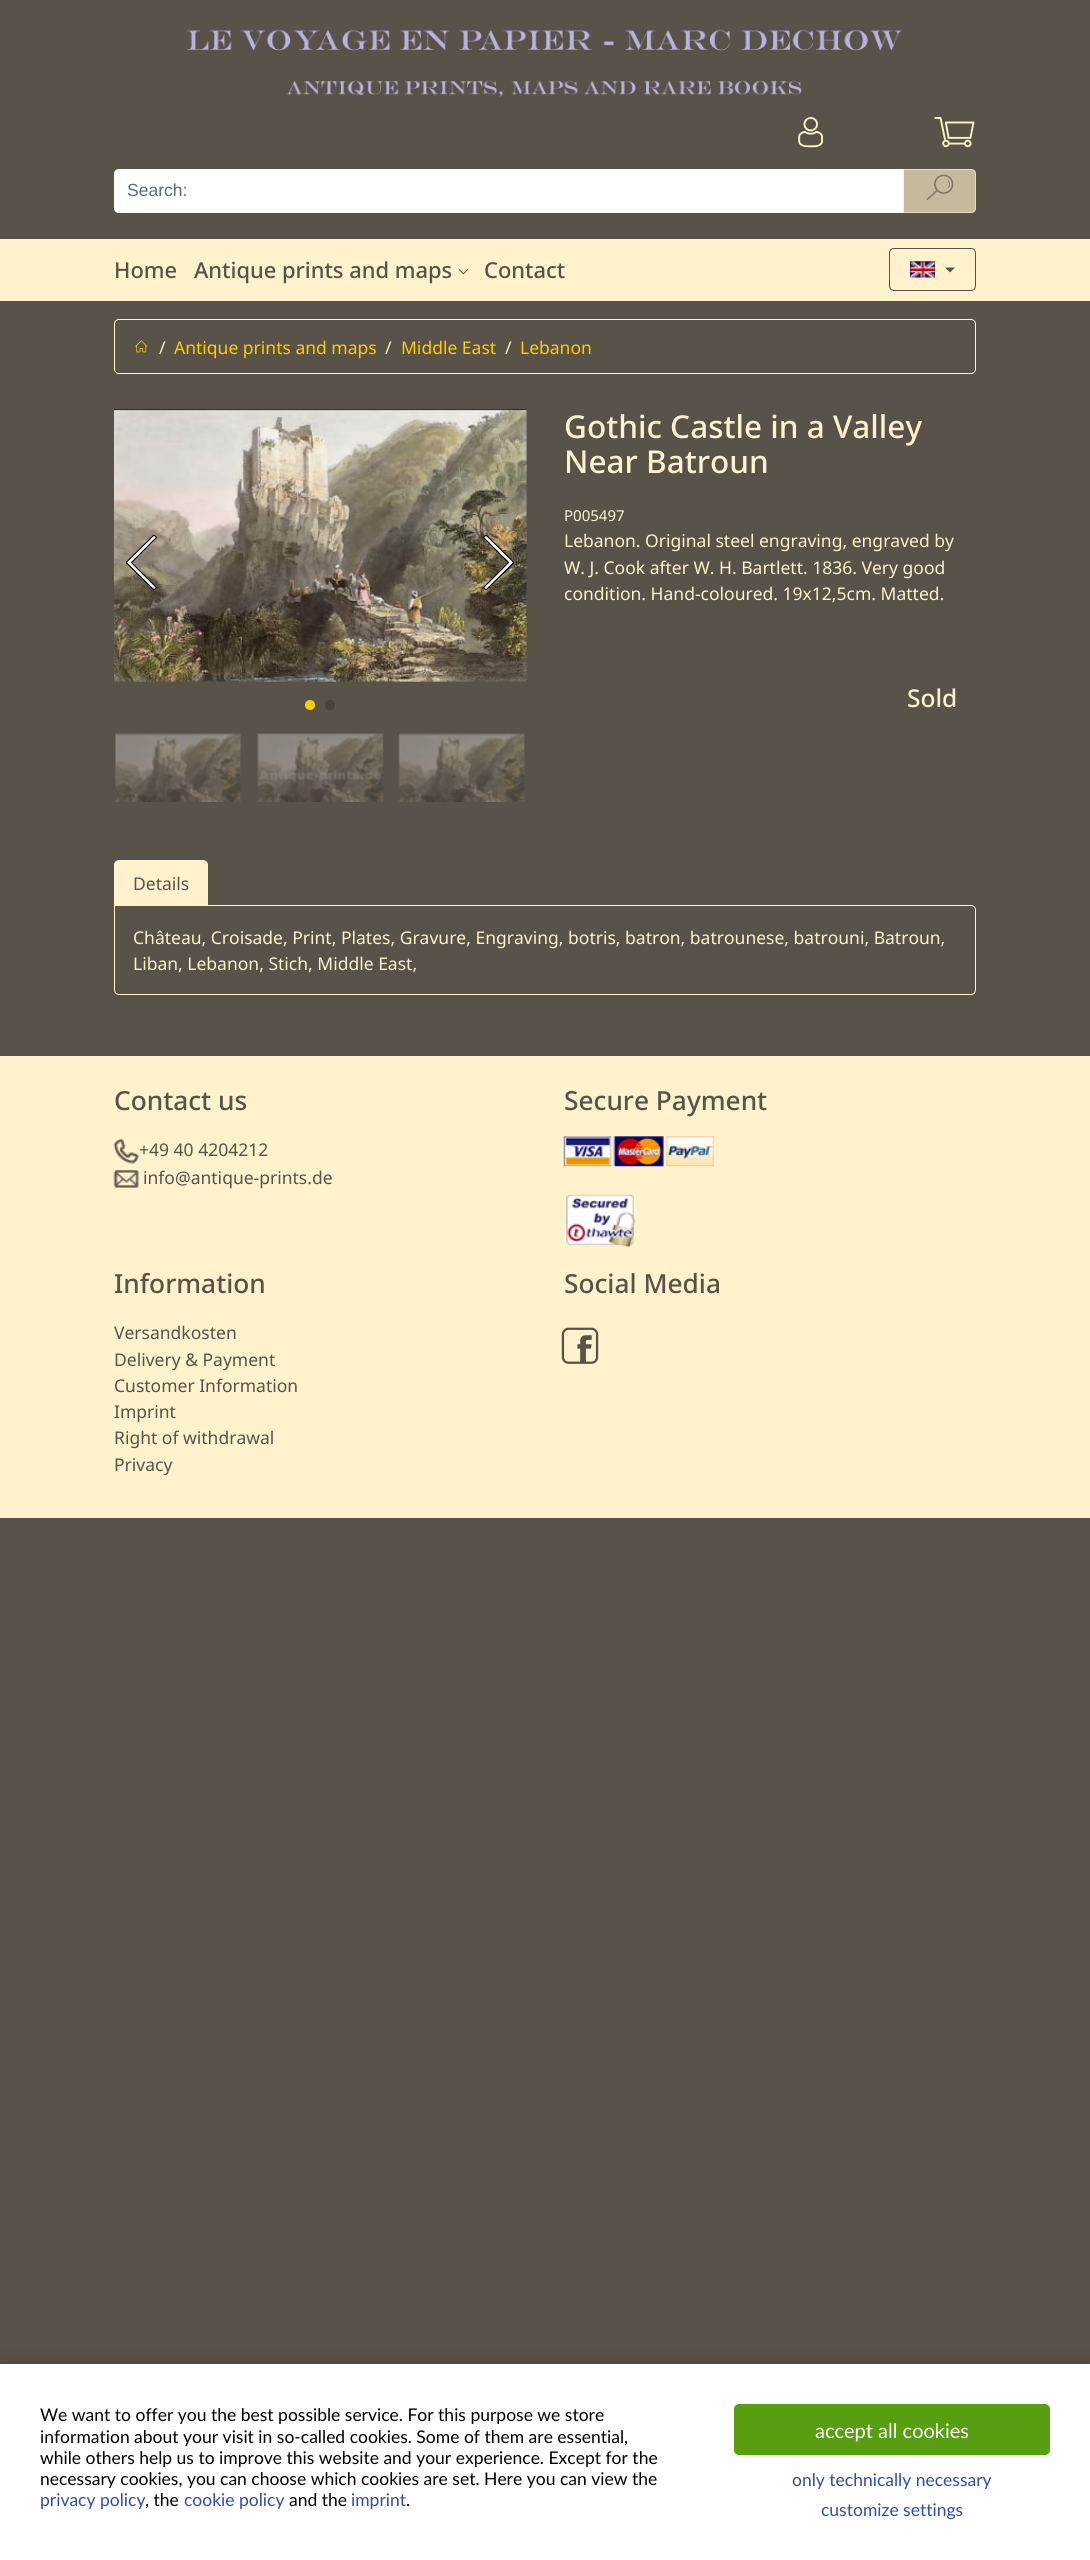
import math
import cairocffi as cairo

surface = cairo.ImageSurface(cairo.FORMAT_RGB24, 1090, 2560)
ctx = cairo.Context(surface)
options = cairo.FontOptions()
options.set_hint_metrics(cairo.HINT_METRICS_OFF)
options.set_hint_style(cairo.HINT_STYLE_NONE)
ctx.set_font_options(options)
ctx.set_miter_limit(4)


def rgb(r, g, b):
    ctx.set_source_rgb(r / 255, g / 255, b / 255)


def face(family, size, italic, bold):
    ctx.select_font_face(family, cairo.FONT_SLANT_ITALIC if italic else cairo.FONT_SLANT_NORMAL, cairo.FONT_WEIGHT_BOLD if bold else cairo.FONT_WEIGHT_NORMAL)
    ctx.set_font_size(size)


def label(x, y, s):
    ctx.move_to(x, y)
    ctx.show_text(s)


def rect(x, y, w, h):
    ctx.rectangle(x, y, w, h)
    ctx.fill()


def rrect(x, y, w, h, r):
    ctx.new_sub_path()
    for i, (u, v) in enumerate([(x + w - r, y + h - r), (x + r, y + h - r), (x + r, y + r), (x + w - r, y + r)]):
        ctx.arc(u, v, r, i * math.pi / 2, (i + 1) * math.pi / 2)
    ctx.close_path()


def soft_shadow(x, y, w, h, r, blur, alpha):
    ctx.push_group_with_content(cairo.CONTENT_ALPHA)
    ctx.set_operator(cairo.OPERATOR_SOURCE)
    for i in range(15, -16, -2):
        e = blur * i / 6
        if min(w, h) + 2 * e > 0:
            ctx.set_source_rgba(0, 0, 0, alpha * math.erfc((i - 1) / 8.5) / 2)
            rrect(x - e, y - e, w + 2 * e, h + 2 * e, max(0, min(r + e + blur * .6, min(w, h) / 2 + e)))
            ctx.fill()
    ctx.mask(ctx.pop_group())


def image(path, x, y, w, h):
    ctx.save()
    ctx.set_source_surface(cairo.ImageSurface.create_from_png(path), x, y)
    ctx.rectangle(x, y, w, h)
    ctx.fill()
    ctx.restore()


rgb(89, 82, 73)
ctx.paint()
image('image0.png', 187, 29, 715, 68)
image('image1.png', 798, 117, 25, 31)
image('image2.png', 934, 117, 41, 31)
rgb(255, 255, 255)
ctx.new_path()
ctx.move_to(119, 169)
ctx.line_to(904, 169)
ctx.line_to(904, 213)
ctx.line_to(119, 213)
ctx.curve_to(116, 213, 114, 211, 114, 208)
ctx.line_to(114, 174)
ctx.curve_to(114, 171, 116, 169, 119, 169)
ctx.close_path()
ctx.fill()
face('Liberation Sans', 17.5, 0, 0)
rgb(99, 108, 114)
label(127, 196, 'Search:')
ctx.set_source_rgba(1, 0.949, 0.8, 0.65)
ctx.new_path()
ctx.move_to(903, 169)
ctx.line_to(971, 169)
ctx.curve_to(974, 169, 976, 171, 976, 174)
ctx.line_to(976, 208)
ctx.curve_to(976, 211, 974, 213, 971, 213)
ctx.line_to(903, 213)
ctx.close_path()
ctx.fill()
ctx.new_path()
ctx.move_to(903.5, 169.5)
ctx.line_to(971, 169.5)
ctx.curve_to(973.5, 169.5, 975.5, 171.5, 975.5, 174)
ctx.line_to(975.5, 208)
ctx.curve_to(975.5, 210.5, 973.5, 212.5, 971, 212.5)
ctx.line_to(903.5, 212.5)
ctx.close_path()
ctx.set_line_width(1)
ctx.stroke()
image('image3.png', 926, 174, 28, 26)
rgb(255, 242, 204)
rect(0, 239, 1090, 62)
face('Noto Sans Medium', 21.9, 0, 0)
rgb(89, 82, 73)
label(114, 278, 'Home')
label(194, 278, 'Antique prints and maps')
image('image4.png', 458, 268, 11, 7)
label(484, 278, 'Contact')
rrect(889.5, 248.5, 86, 42, 4.5)
ctx.stroke()
image('image5.png', 910, 261, 25, 17)
ctx.new_path()
ctx.move_to(945, 267.5)
ctx.line_to(955, 267.5)
ctx.line_to(950, 272.5)
ctx.close_path()
ctx.fill()
rrect(114.5, 319.5, 861, 54, 4.5)
rgb(255, 242, 204)
ctx.stroke()
image('image6.png', 135, 340, 13, 13)
face('Noto Sans', 17.5, 0, 0)
label(159, 354, '/')
rgb(255, 204, 0)
label(174, 354, 'Antique prints and maps')
rgb(255, 242, 204)
label(385, 354, '/')
rgb(255, 204, 0)
label(401, 354, 'Middle East')
rgb(255, 242, 204)
label(505, 354, '/')
rgb(255, 204, 0)
label(520, 354, 'Lebanon')
image('image7.png', 114, 409, 413, 273)
rgb(255, 255, 255)
ctx.new_path()
ctx.move_to(126, 562)
ctx.line_to(154, 535)
ctx.line_to(156, 538)
ctx.line_to(132, 562)
ctx.line_to(156, 587)
ctx.line_to(154, 590)
ctx.close_path()
ctx.fill()
ctx.save()
ctx.rectangle(126, 535, 34, 55)
ctx.clip()
ctx.new_path()
ctx.move_to(126, 562.5)
ctx.line_to(154, 535)
ctx.line_to(156.5, 537.5)
ctx.line_to(131.5, 562.5)
ctx.line_to(156.5, 587.5)
ctx.line_to(154, 590)
ctx.close_path()
rgb(10, 10, 10)
ctx.set_line_width(1.2)
ctx.stroke()
ctx.restore()
ctx.new_path()
ctx.move_to(514, 562)
ctx.line_to(486, 590)
ctx.line_to(484, 587)
ctx.line_to(508, 562)
ctx.line_to(484, 538)
ctx.line_to(486, 535)
ctx.close_path()
ctx.fill()
ctx.save()
ctx.rectangle(480, 535, 34, 55)
ctx.clip()
ctx.new_path()
ctx.move_to(514, 562.5)
ctx.line_to(486, 590)
ctx.line_to(483.5, 587.5)
ctx.line_to(508.5, 562.5)
ctx.line_to(483.5, 537.5)
ctx.line_to(486, 535)
ctx.close_path()
rgb(10, 10, 10)
ctx.set_line_width(1.2)
ctx.stroke()
ctx.restore()
rgb(255, 204, 0)
ctx.arc(310, 705, 5, 0, 2 * math.pi)
ctx.fill()
rgb(71, 66, 58)
ctx.arc(330, 705, 5, 0, 2 * math.pi)
ctx.fill()
image('image8.png', 115, 733, 126, 69)
image('image9.png', 257, 733, 127, 69)
image('image10.png', 398, 733, 127, 69)
face('Noto Sans Medium', 31.5, 0, 0)
rgb(255, 242, 204)
label(564, 438, 'Gothic Castle in a Valley')
label(564, 473, 'Near Batroun')
face('Noto Sans', 15, 0, 0)
label(564, 521, 'P005497')
face('Noto Sans', 17.5, 0, 0)
label(564, 547, 'Lebanon. Original steel engraving, engraved by')
label(564, 574, 'W. J. Cook after W. H. Bartlett. 1836. Very good')
label(564, 600, 'condition. Hand-coloured. 19x12,5cm. Matted.')
face('Noto Sans Medium', 24.5, 0, 0)
label(907, 707, 'Sold')
ctx.new_path()
ctx.move_to(114.5, 905.5)
ctx.line_to(971, 905.5)
ctx.curve_to(973.5, 905.5, 975.5, 907.5, 975.5, 910)
ctx.line_to(975.5, 990)
ctx.curve_to(975.5, 992.5, 973.5, 994.5, 971, 994.5)
ctx.line_to(119, 994.5)
ctx.curve_to(116.5, 994.5, 114.5, 992.5, 114.5, 990)
ctx.close_path()
ctx.stroke()
ctx.new_path()
ctx.move_to(119, 860.5)
ctx.line_to(203, 860.5)
ctx.curve_to(205.5, 860.5, 207.5, 862.5, 207.5, 865)
ctx.line_to(207.5, 905.5)
ctx.line_to(114.5, 905.5)
ctx.line_to(114.5, 865)
ctx.curve_to(114.5, 862.5, 116.5, 860.5, 119, 860.5)
ctx.close_path()
ctx.fill_preserve()
ctx.stroke()
face('Noto Sans', 17.5, 0, 0)
rgb(89, 82, 73)
label(133, 890, 'Details')
rgb(255, 242, 204)
label(133, 944, 'Château, Croisade, Print, Plates, Gravure, Engraving, botris, batron, batrounese, batrouni, Batroun,')
label(133, 970, 'Liban, Lebanon, Stich, Middle East,')
rect(0, 1056, 1090, 462)
face('Noto Sans Medium', 26.25, 0, 0)
rgb(89, 82, 73)
label(114, 1110, 'Contact us')
image('image11.png', 113, 1138, 26, 26)
face('Noto Sans', 17.5, 0, 0)
label(139, 1156, '+49 40 4204212')
image('image12.png', 113, 1169, 26, 19)
label(143, 1184, 'info@antique-prints.de')
face('Noto Sans Medium', 26.25, 0, 0)
label(564, 1110, 'Secure Payment')
image('image13.png', 563, 1136, 151, 31)
image('image14.png', 566, 1194, 70, 54)
label(114, 1293, 'Information')
face('Noto Sans', 17.5, 0, 0)
label(114, 1339, 'Versandkosten')
label(114, 1366, 'Delivery & Payment')
label(114, 1392, 'Customer Information')
label(114, 1418, 'Imprint')
label(114, 1444, 'Right of withdrawal')
label(114, 1471, 'Privacy')
face('Noto Sans Medium', 26.25, 0, 0)
label(564, 1293, 'Social Media')
image('image15.png', 561, 1327, 38, 37)
rgb(0, 0, 0)
soft_shadow(0, 2364, 1090, 196, 0, 7.5, 0.25)
rgb(255, 255, 255)
rect(0, 2364, 1090, 196)
face('Lato', 17.5, 0, 0)
rgb(0, 0, 0)
label(40, 2421, 'We want to offer you the best possible service. For this purpose we store')
label(40, 2443, 'information about your visit in so-called cookies. Some of them are essential,')
label(40, 2464, 'while others help us to improve this website and your experience. Except for the')
label(40, 2485, 'necessary cookies, you can choose which cookies are set. Here you can view the')
rgb(46, 77, 167)
label(40, 2506, 'privacy policy')
rgb(0, 0, 0)
label(145, 2506, ', the')
rgb(46, 77, 167)
label(184, 2506, 'cookie policy')
rgb(0, 0, 0)
label(289, 2506, 'and the')
rgb(46, 77, 167)
label(351, 2506, 'imprint')
rgb(0, 0, 0)
label(406, 2506, '.')
rgb(88, 158, 17)
rrect(734.5, 2404.5, 315, 50, 4.5)
ctx.fill_preserve()
ctx.stroke()
face('Lato', 20, 0, 0)
rgb(255, 255, 255)
label(815, 2438, 'accept all cookies')
face('Lato', 17.5, 0, 0)
rgb(46, 77, 167)
label(792, 2486, 'only technically necessary')
label(821, 2516, 'customize settings')
surface.write_to_png('render.png')
